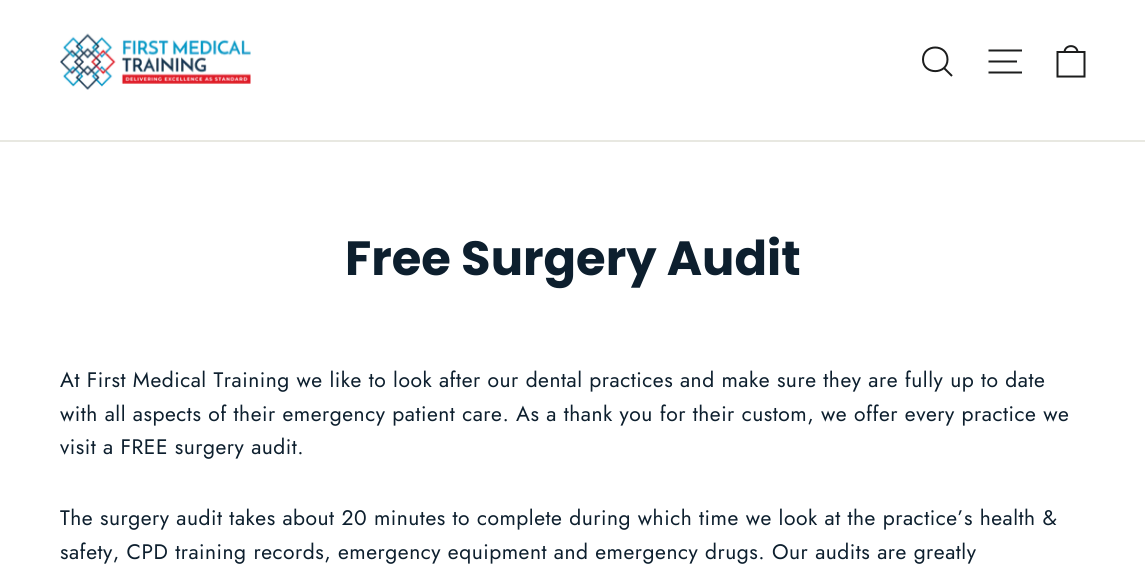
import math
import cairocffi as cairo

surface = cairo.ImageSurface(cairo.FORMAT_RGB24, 1145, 577)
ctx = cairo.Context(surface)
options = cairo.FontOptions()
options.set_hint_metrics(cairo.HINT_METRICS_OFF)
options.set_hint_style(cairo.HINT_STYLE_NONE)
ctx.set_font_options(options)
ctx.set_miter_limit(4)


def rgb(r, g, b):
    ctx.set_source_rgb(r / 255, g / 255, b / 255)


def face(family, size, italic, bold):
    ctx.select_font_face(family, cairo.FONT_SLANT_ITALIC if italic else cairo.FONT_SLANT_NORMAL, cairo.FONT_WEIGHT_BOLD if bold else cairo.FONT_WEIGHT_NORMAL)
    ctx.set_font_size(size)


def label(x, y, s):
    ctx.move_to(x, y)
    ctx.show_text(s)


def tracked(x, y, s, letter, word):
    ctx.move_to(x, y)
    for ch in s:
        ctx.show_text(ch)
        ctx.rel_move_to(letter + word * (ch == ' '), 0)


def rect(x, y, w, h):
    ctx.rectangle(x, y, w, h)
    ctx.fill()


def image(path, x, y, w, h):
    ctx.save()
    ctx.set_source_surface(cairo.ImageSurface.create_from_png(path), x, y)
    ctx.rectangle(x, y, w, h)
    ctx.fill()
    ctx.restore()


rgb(255, 255, 255)
ctx.paint()
rgb(232, 232, 225)
rect(0, 140, 1145, 2)
image('image0.png', 60, 33, 191, 57)
ctx.new_path()
ctx.move_to(947.5, 59.5)
ctx.curve_to(947.5, 75, 923, 75, 923, 59.5)
ctx.curve_to(923, 43.5, 947.5, 43.5, 947.5, 59.5)
ctx.close_path()
ctx.move_to(952, 76)
ctx.line_to(944, 68)
rgb(28, 29, 29)
ctx.stroke()
ctx.new_path()
ctx.move_to(988.5, 50.5)
ctx.line_to(1022, 50.5)
ctx.move_to(988.5, 61.5)
ctx.line_to(1017, 61.5)
ctx.move_to(988.5, 72.5)
ctx.line_to(1022, 72.5)
ctx.stroke()
ctx.new_path()
ctx.move_to(1057.5, 52)
ctx.line_to(1084.5, 52)
ctx.line_to(1084.5, 76.5)
ctx.line_to(1057.5, 76.5)
ctx.close_path()
ctx.move_to(1064.5, 52.5)
ctx.curve_to(1064.5, 44, 1077.5, 44, 1077.5, 52.5)
ctx.stroke()
face('Poppins', 48, 0, 1)
rgb(13, 31, 46)
label(345, 275, 'Free Surgery Audit')
face('Jost', 21, 0, 0)
tracked(60, 387, 'At First Medical Training we like to look after our dental practices and make sure they are fully up to date', 0.52, 0)
tracked(60, 421, 'with all aspects of their emergency patient care. As a thank you for their custom, we offer every practice we', 0.52, 0)
tracked(60, 454, 'visit a FREE surgery audit.', 0.52, 0)
tracked(60, 525, 'The surgery audit takes about 20 minutes to complete during which time we look at the practice’s health &', 0.52, 0)
tracked(60, 559, 'safety, CPD training records, emergency equipment and emergency drugs. Our audits are greatly', 0.52, 0)
surface.write_to_png('render.png')
